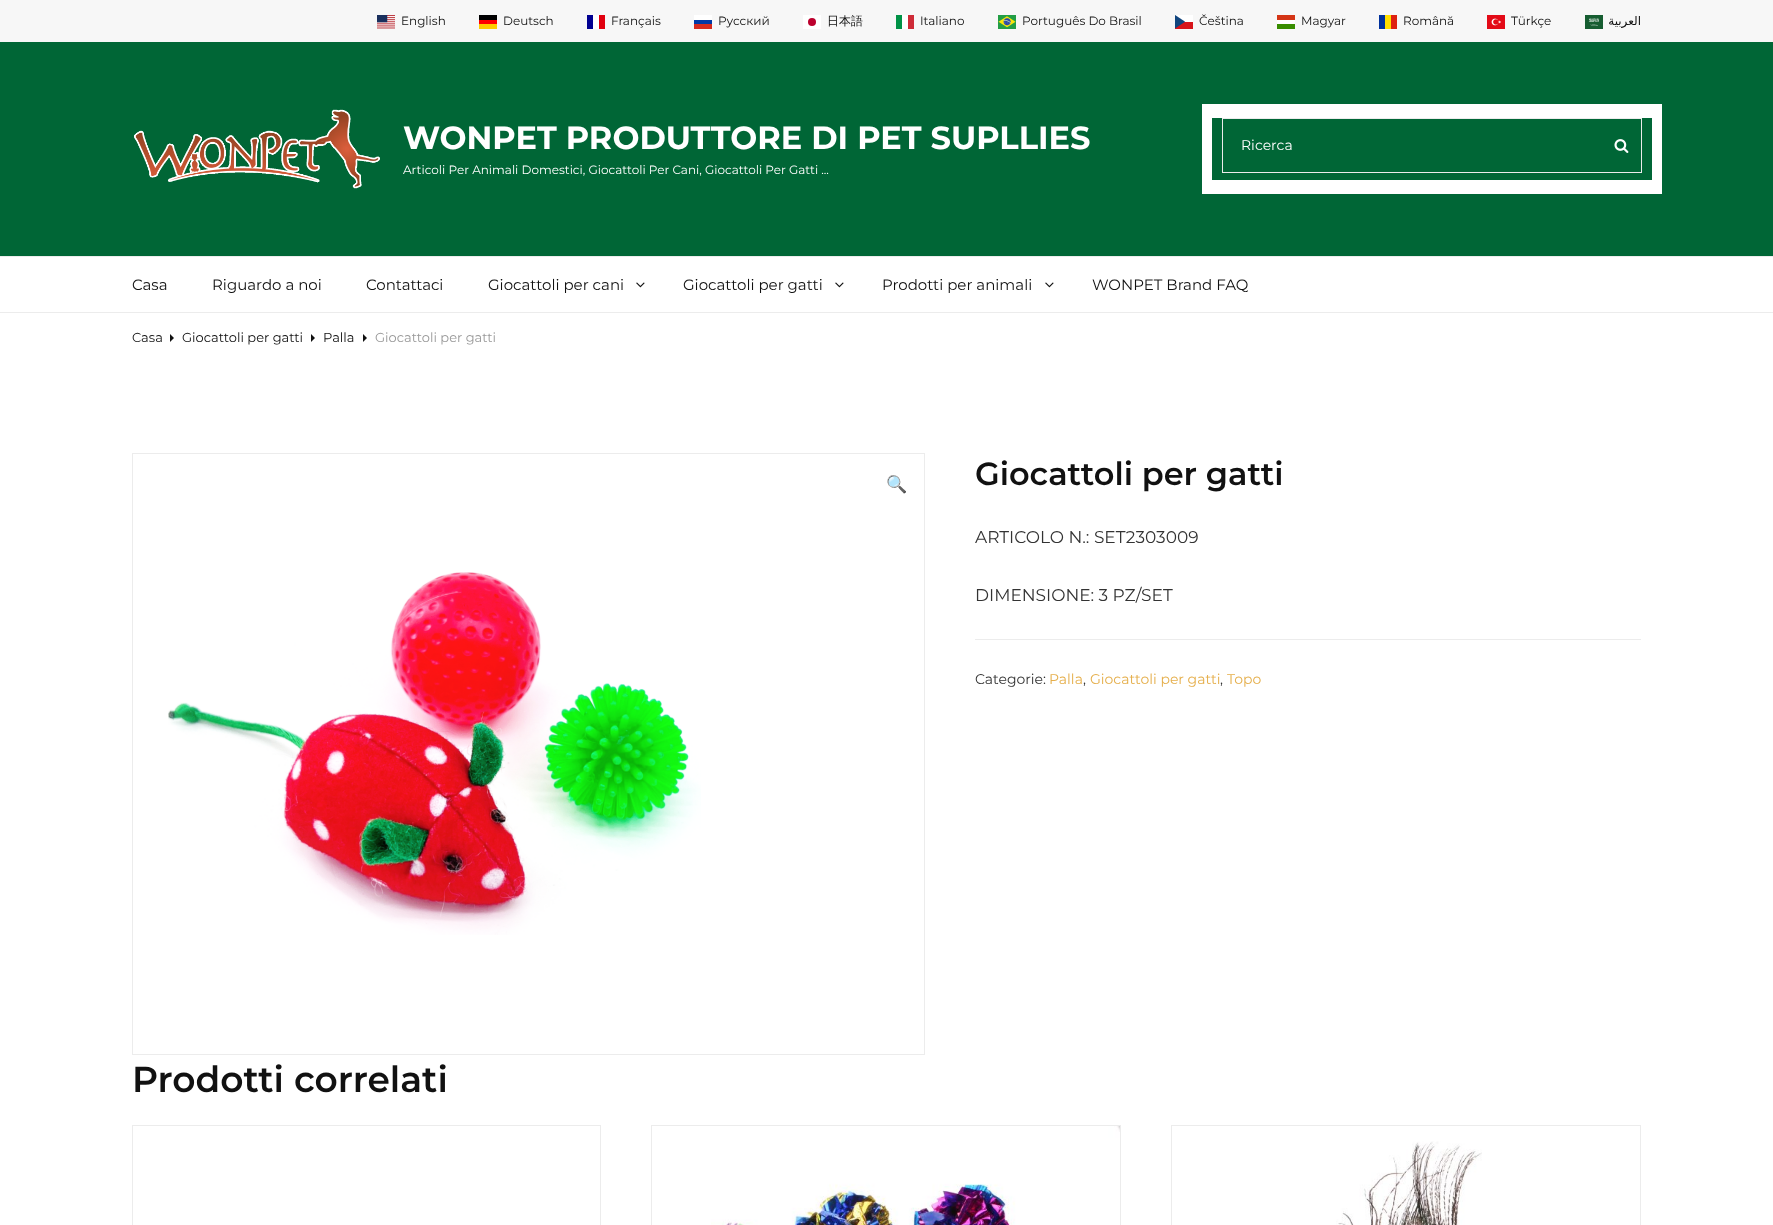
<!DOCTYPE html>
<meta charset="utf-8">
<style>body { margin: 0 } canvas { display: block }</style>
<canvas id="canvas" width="1773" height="1225"></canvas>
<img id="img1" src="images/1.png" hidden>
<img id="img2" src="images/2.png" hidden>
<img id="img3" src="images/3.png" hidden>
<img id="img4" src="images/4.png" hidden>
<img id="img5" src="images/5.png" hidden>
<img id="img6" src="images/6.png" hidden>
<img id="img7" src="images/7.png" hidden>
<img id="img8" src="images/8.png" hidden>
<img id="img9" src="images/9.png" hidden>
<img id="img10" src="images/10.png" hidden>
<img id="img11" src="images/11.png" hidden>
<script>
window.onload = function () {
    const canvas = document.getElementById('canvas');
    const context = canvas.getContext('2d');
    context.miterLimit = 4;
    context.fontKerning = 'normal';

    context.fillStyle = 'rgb(255, 255, 255)';
    context.fillRect(0, 0, 1773, 1225);
    context.fillStyle = 'rgb(247, 247, 247)';
    context.fillRect(0, 0, 1773, 42);
    context.drawImage(document.getElementById('img1'), 377, 15, 18, 14);
    context.fillStyle = 'rgb(255, 204, 0)';
    context.fillRect(479, 24, 18, 5);
    context.fillStyle = 'rgb(0, 0, 1)';
    context.fillRect(479, 15, 18, 5);
    context.fillStyle = 'rgb(255, 0, 0)';
    context.fillRect(479, 20, 18, 4);
    context.fillStyle = 'rgb(255, 255, 255)';
    context.fillRect(593, 15, 6, 14);
    context.fillStyle = 'rgb(0, 0, 145)';
    context.fillRect(587, 15, 6, 14);
    context.fillStyle = 'rgb(225, 0, 15)';
    context.fillRect(599, 15, 6, 14);
    context.fillStyle = 'rgb(255, 255, 255)';
    context.fillRect(694, 15, 18, 5);
    context.fillStyle = 'rgb(0, 57, 166)';
    context.fillRect(694, 20, 18, 4);
    context.fillStyle = 'rgb(213, 43, 30)';
    context.fillRect(694, 24, 18, 5);
    context.fillStyle = 'rgb(255, 255, 255)';
    context.fillRect(803, 15, 18, 14);
    context.fillStyle = 'rgb(188, 0, 45)';
    context.beginPath();
    context.arc(812, 22, 4, 0, 2 * Math.PI);
    context.fill();
    context.fillStyle = 'rgb(255, 255, 255)';
    context.fillRect(902, 15, 6, 14);
    context.fillStyle = 'rgb(0, 146, 70)';
    context.fillRect(896, 15, 6, 14);
    context.fillStyle = 'rgb(206, 43, 55)';
    context.fillRect(908, 15, 6, 14);
    context.drawImage(document.getElementById('img2'), 998, 15, 18, 14);
    context.drawImage(document.getElementById('img3'), 1175, 15, 18, 14);
    context.fillStyle = 'rgb(255, 255, 255)';
    context.fillRect(1277, 20, 18, 4);
    context.fillStyle = 'rgb(56, 141, 0)';
    context.fillRect(1277, 24, 18, 5);
    context.fillStyle = 'rgb(212, 53, 22)';
    context.fillRect(1277, 15, 18, 5);
    context.fillStyle = 'rgb(0, 49, 156)';
    context.fillRect(1379, 15, 6, 14);
    context.fillStyle = 'rgb(255, 222, 0)';
    context.fillRect(1385, 15, 6, 14);
    context.fillStyle = 'rgb(222, 33, 16)';
    context.fillRect(1391, 15, 6, 14);
    context.drawImage(document.getElementById('img4'), 1487, 15, 18, 14);
    context.drawImage(document.getElementById('img5'), 1585, 15, 18, 14);
    context.fillStyle = 'rgb(0, 102, 54)';
    context.fillRect(0, 42, 1773, 214);
    context.drawImage(document.getElementById('img6'), 134, 109, 246, 80);
    context.fillStyle = 'rgb(255, 255, 255)';
    context.fillRect(1202, 104, 460, 90);
    context.fillStyle = 'rgb(0, 102, 54)';
    context.fillRect(1212, 118, 440, 62);
    context.strokeStyle = 'rgb(236, 236, 236)';
    context.strokeRect(1222.5, 118.5, 419, 54);
    context.drawImage(document.getElementById('img7'), 1614, 139, 15, 14);
    context.fillStyle = 'rgb(236, 236, 236)';
    context.fillRect(0, 256, 1773, 1);
    context.fillRect(0, 312, 1773, 1);
    context.drawImage(document.getElementById('img8'), 636, 282, 9, 6);
    context.drawImage(document.getElementById('img8'), 835, 282, 9, 6);
    context.drawImage(document.getElementById('img8'), 1045, 282, 9, 6);
    context.fillStyle = 'rgb(17, 17, 17)';
    context.beginPath();
    context.moveTo(170, 342);
    context.lineTo(170, 334);
    context.lineTo(174, 338);
    context.closePath();
    context.fill();
    context.beginPath();
    context.moveTo(311, 342);
    context.lineTo(311, 334);
    context.lineTo(315, 338);
    context.closePath();
    context.fill();
    context.beginPath();
    context.moveTo(363, 342);
    context.lineTo(363, 334);
    context.lineTo(367, 338);
    context.closePath();
    context.fill();
    context.strokeRect(132.5, 453.5, 792, 601);
    context.drawImage(document.getElementById('img9'), 168, 572, 533, 363);
    context.fillStyle = 'rgb(236, 236, 236)';
    context.fillRect(975, 639, 666, 1);
    context.strokeRect(132.5, 1125.5, 468, 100);
    context.strokeRect(651.5, 1125.5, 469, 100);
    context.drawImage(document.getElementById('img10'), 711, 1126, 409, 99);
    context.strokeRect(1171.5, 1125.5, 469, 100);
    context.drawImage(document.getElementById('img11'), 1336, 1141, 146, 84);
    context.font = '12px Montserrat';
    context.fillStyle = 'rgb(17, 17, 17)';
    context.fillText('English', 401, 25);
    context.fillText('Deutsch', 503, 25);
    context.fillText('Français', 611, 25);
    context.fillText('Русский', 718, 25);
    context.font = '500 12px WenQuanYi Zen Hei';
    context.fillText('日本語', 827, 25);
    context.font = '12px Montserrat';
    context.fillText('Italiano', 920, 25);
    context.fillText('Português Do Brasil', 1022, 25);
    context.fillText('Čeština', 1199, 25);
    context.fillText('Magyar', 1301, 25);
    context.fillText('Română', 1403, 25);
    context.fillText('Türkçe', 1511, 25);
    context.direction = 'rtl';
    context.font = '12px DejaVu Sans';
    context.fillText('العربية', 1641, 25);
    context.direction = 'ltr';
    context.font = 'bold 32px Montserrat';
    context.fillStyle = 'rgb(255, 255, 255)';
    context.fillText('WONPET PRODUTTORE DI PET SUPLLIES', 403, 149);
    context.font = '12px Montserrat';
    context.fillText('Articoli Per Animali Domestici, Giocattoli Per Cani, Giocattoli Per Gatti ...', 403, 174);
    context.font = '14px Montserrat';
    context.fillText('Ricerca', 1241, 150);
    context.font = '15px Montserrat';
    context.fillStyle = 'rgb(17, 17, 17)';
    context.fillText('Casa', 132, 290);
    context.fillText('Riguardo a noi', 212, 290);
    context.fillText('Contattaci', 366, 290);
    context.fillText('Giocattoli per cani', 488, 290);
    context.fillText('Giocattoli per gatti', 683, 290);
    context.fillText('Prodotti per animali', 882, 290);
    context.fillText('WONPET Brand FAQ', 1092, 290);
    context.font = '13px Montserrat';
    context.fillText('Casa', 132, 342);
    context.fillText('Giocattoli per gatti', 182, 342);
    context.fillText('Palla', 323, 342);
    context.fillStyle = 'rgb(153, 153, 153)';
    context.fillText('Giocattoli per gatti', 375, 342);
    context.font = '17px Noto Color Emoji';
    context.fillStyle = 'rgb(17, 17, 17)';
    context.fillText('🔍', 886, 490);
    context.font = '600 32px Montserrat';
    context.fillText('Giocattoli per gatti', 975, 485);
    context.font = '17px Montserrat';
    context.fillStyle = 'rgb(51, 51, 51)';
    context.fillText('ARTICOLO N.: SET2303009', 975, 543);
    context.fillText('DIMENSIONE: 3 PZ/SET', 975, 601);
    context.font = '14px Montserrat';
    context.fillText('Categorie:', 975, 684);
    context.fillStyle = 'rgb(229, 174, 74)';
    context.fillText('Palla', 1049, 684);
    context.fillStyle = 'rgb(51, 51, 51)';
    context.fillText(',', 1083, 684);
    context.fillStyle = 'rgb(229, 174, 74)';
    context.fillText('Giocattoli per gatti', 1090, 684);
    context.fillStyle = 'rgb(51, 51, 51)';
    context.fillText(',', 1220, 684);
    context.fillStyle = 'rgb(229, 174, 74)';
    context.fillText('Topo', 1227, 684);
    context.font = '600 36px Montserrat';
    context.fillStyle = 'rgb(17, 17, 17)';
    context.fillText('Prodotti correlati', 132, 1092);
};
</script>
